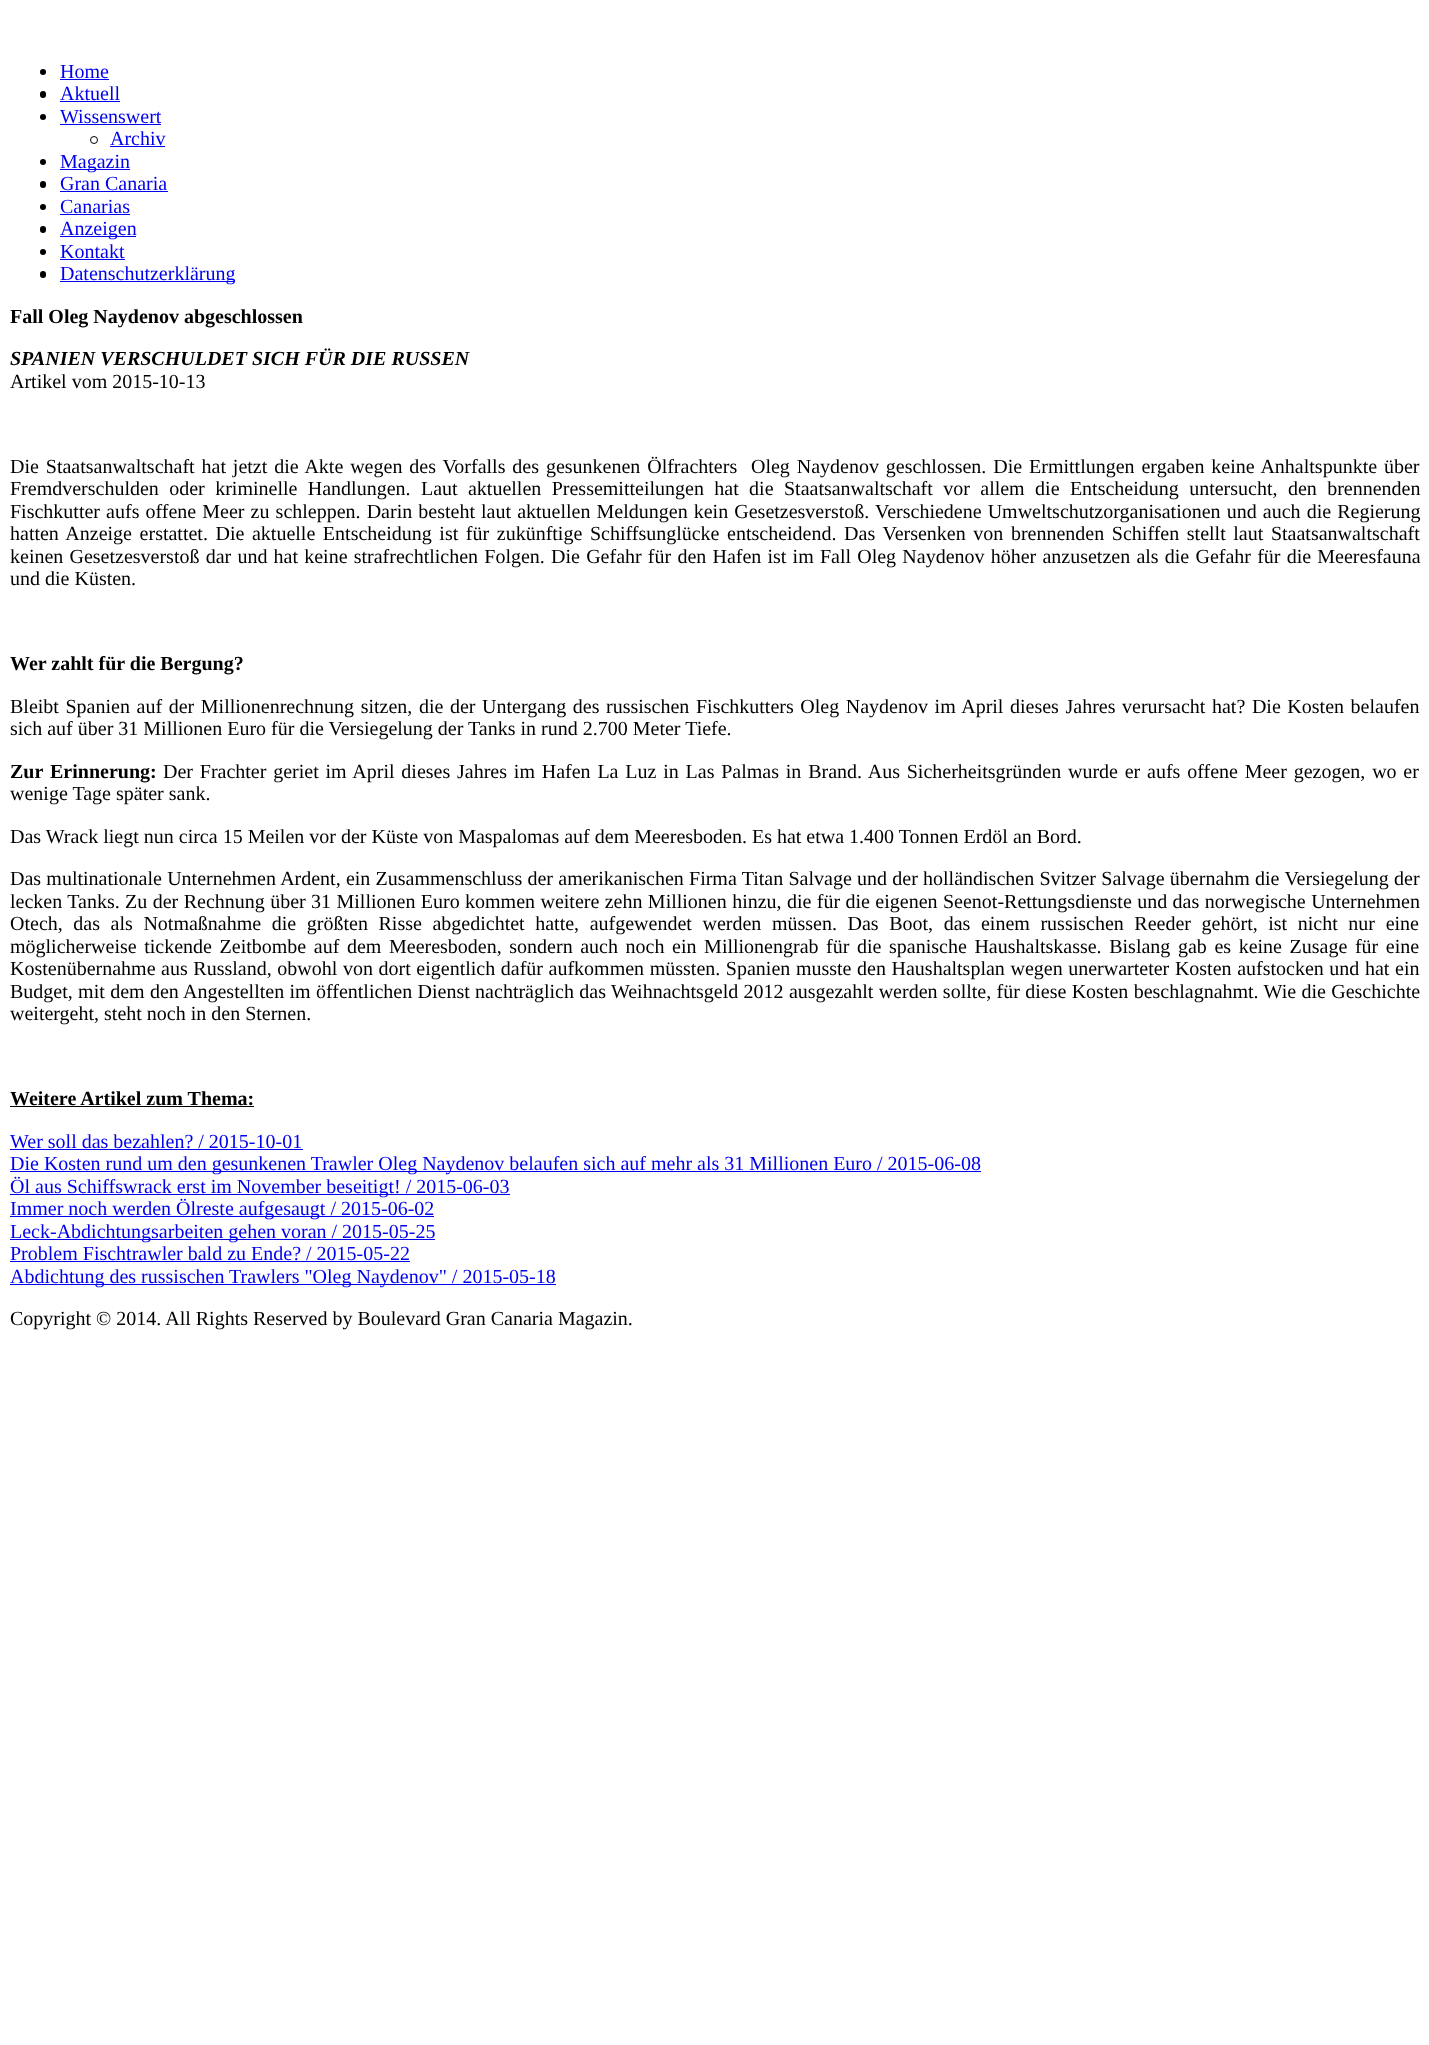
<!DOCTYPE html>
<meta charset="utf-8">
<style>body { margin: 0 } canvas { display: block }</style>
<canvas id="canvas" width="1429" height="2045"></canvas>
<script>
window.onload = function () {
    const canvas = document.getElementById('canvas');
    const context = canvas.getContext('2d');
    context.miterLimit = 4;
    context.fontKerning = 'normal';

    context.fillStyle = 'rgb(255, 255, 255)';
    context.fillRect(0, 0, 1429, 2045);
    context.fillStyle = 'rgb(0, 0, 0)';
    context.beginPath();
    context.arc(43, 72, 3, 0, 2 * Math.PI);
    context.fill();
    context.fillStyle = 'rgb(0, 0, 238)';
    context.fillRect(60, 79, 49, 1);
    context.fillStyle = 'rgb(0, 0, 0)';
    context.beginPath();
    context.roundRect(40, 91, 6, 7, 3);
    context.fill();
    context.fillStyle = 'rgb(0, 0, 238)';
    context.fillRect(60, 101, 60, 1);
    context.fillStyle = 'rgb(0, 0, 0)';
    context.beginPath();
    context.arc(43, 117, 3, 0, 2 * Math.PI);
    context.fill();
    context.fillStyle = 'rgb(0, 0, 238)';
    context.fillRect(60, 124, 101, 1);
    context.beginPath();
    context.arc(94, 140, 3.5, 0, 2 * Math.PI);
    context.strokeStyle = 'rgb(0, 0, 0)';
    context.stroke();
    context.fillRect(110, 146, 55, 1);
    context.fillStyle = 'rgb(0, 0, 0)';
    context.beginPath();
    context.arc(43, 162, 3, 0, 2 * Math.PI);
    context.fill();
    context.fillStyle = 'rgb(0, 0, 238)';
    context.fillRect(60, 169, 70, 1);
    context.fillStyle = 'rgb(0, 0, 0)';
    context.beginPath();
    context.roundRect(40, 181, 6, 7, 3);
    context.fill();
    context.fillStyle = 'rgb(0, 0, 238)';
    context.fillRect(60, 191, 108, 1);
    context.fillStyle = 'rgb(0, 0, 0)';
    context.beginPath();
    context.arc(43, 207, 3, 0, 2 * Math.PI);
    context.fill();
    context.fillStyle = 'rgb(0, 0, 238)';
    context.fillRect(60, 214, 70, 1);
    context.fillStyle = 'rgb(0, 0, 0)';
    context.beginPath();
    context.roundRect(40, 226, 6, 7, 3);
    context.fill();
    context.fillStyle = 'rgb(0, 0, 238)';
    context.fillRect(60, 236, 76, 1);
    context.fillStyle = 'rgb(0, 0, 0)';
    context.beginPath();
    context.arc(43, 252, 3, 0, 2 * Math.PI);
    context.fill();
    context.fillStyle = 'rgb(0, 0, 238)';
    context.fillRect(60, 259, 65, 1);
    context.fillStyle = 'rgb(0, 0, 0)';
    context.beginPath();
    context.roundRect(40, 271, 6, 7, 3);
    context.fill();
    context.fillStyle = 'rgb(0, 0, 238)';
    context.fillRect(60, 281, 175, 1);
    context.fillStyle = 'rgb(0, 0, 0)';
    context.fillRect(10, 1106, 244, 1);
    context.fillStyle = 'rgb(0, 0, 238)';
    context.fillRect(10, 1149, 293, 1);
    context.fillRect(10, 1171, 971, 1);
    context.fillRect(10, 1194, 500, 1);
    context.fillRect(10, 1216, 424, 1);
    context.fillRect(10, 1239, 425, 1);
    context.fillRect(10, 1261, 400, 1);
    context.fillRect(10, 1284, 546, 1);
    context.font = '20px Liberation Serif';
    context.fillText('Home', 60, 78);
    context.fillText('Aktuell', 60, 100);
    context.fillText('Wissenswert', 60, 123);
    context.fillText('Archiv', 110, 145);
    context.fillText('Magazin', 60, 168);
    context.fillText('Gran Canaria', 60, 190);
    context.fillText('Canarias', 60, 213);
    context.fillText('Anzeigen', 60, 235);
    context.fillText('Kontakt', 60, 258);
    context.fillText('Datenschutzerklärung', 60, 280);
    context.font = 'bold 20px Liberation Serif';
    context.fillStyle = 'rgb(0, 0, 0)';
    context.fillText('Fall Oleg Naydenov abgeschlossen', 10, 323);
    context.font = 'italic bold 20px Liberation Serif';
    context.fillText('SPANIEN VERSCHULDET SICH FÜR DIE RUSSEN', 10, 365);
    context.font = '20px Liberation Serif';
    context.fillText('Artikel vom 2015-10-13', 10, 388);
    context.wordSpacing = '1.9px';
    context.fillText('Die Staatsanwaltschaft hat jetzt die Akte wegen des Vorfalls des gesunkenen Ölfrachters  Oleg Naydenov geschlossen. Die Ermittlungen ergaben keine Anhaltspunkte über', 10, 473);
    context.wordSpacing = '5.4px';
    context.fillText('Fremdverschulden oder kriminelle Handlungen. Laut aktuellen Pressemitteilungen hat die Staatsanwaltschaft vor allem die Entscheidung untersucht, den brennenden', 10, 495);
    context.wordSpacing = '1.1px';
    context.fillText('Fischkutter aufs offene Meer zu schleppen. Darin besteht laut aktuellen Meldungen kein Gesetzesverstoß. Verschiedene Umweltschutzorganisationen und auch die Regierung', 10, 518);
    context.wordSpacing = '2.6px';
    context.fillText('hatten Anzeige erstattet. Die aktuelle Entscheidung ist für zukünftige Schiffsunglücke entscheidend. Das Versenken von brennenden Schiffen stellt laut Staatsanwaltschaft', 10, 540);
    context.wordSpacing = '1.2px';
    context.fillText('keinen Gesetzesverstoß dar und hat keine strafrechtlichen Folgen. Die Gefahr für den Hafen ist im Fall Oleg Naydenov höher anzusetzen als die Gefahr für die Meeresfauna', 10, 563);
    context.wordSpacing = '0px';
    context.fillText('und die Küsten.', 10, 585);
    context.font = 'bold 20px Liberation Serif';
    context.fillText('Wer zahlt für die Bergung?', 10, 670);
    context.wordSpacing = '1.6px';
    context.font = '20px Liberation Serif';
    context.fillText('Bleibt Spanien auf der Millionenrechnung sitzen, die der Untergang des russischen Fischkutters Oleg Naydenov im April dieses Jahres verursacht hat? Die Kosten belaufen', 10, 713);
    context.wordSpacing = '0px';
    context.fillText('sich auf über 31 Millionen Euro für die Versiegelung der Tanks in rund 2.700 Meter Tiefe.', 10, 735);
    context.wordSpacing = '2px';
    context.font = 'bold 20px Liberation Serif';
    context.fillText('Zur Erinnerung:', 10, 778);
    context.wordSpacing = '1.8px';
    context.font = '20px Liberation Serif';
    context.fillText('Der Frachter geriet im April dieses Jahres im Hafen La Luz in Las Palmas in Brand. Aus Sicherheitsgründen wurde er aufs offene Meer gezogen, wo er', 163, 778);
    context.wordSpacing = '0px';
    context.fillText('wenige Tage später sank.', 10, 800);
    context.fillText('Das Wrack liegt nun circa 15 Meilen vor der Küste von Maspalomas auf dem Meeresboden. Es hat etwa 1.400 Tonnen Erdöl an Bord.', 10, 843);
    context.wordSpacing = '0.25px';
    context.fillText('Das multinationale Unternehmen Ardent, ein Zusammenschluss der amerikanischen Firma Titan Salvage und der holländischen Svitzer Salvage übernahm die Versiegelung der', 10, 885);
    context.wordSpacing = '0.4px';
    context.fillText('lecken Tanks. Zu der Rechnung über 31 Millionen Euro kommen weitere zehn Millionen hinzu, die für die eigenen Seenot-Rettungsdienste und das norwegische Unternehmen', 10, 908);
    context.wordSpacing = '5.6px';
    context.fillText('Otech, das als Notmaßnahme die größten Risse abgedichtet hatte, aufgewendet werden müssen. Das Boot, das einem russischen Reeder gehört, ist nicht nur eine', 10, 930);
    context.wordSpacing = '2.6px';
    context.fillText('möglicherweise tickende Zeitbombe auf dem Meeresboden, sondern auch noch ein Millionengrab für die spanische Haushaltskasse. Bislang gab es keine Zusage für eine', 10, 953);
    context.wordSpacing = '0.6px';
    context.fillText('Kostenübernahme aus Russland, obwohl von dort eigentlich dafür aufkommen müssten. Spanien musste den Haushaltsplan wegen unerwarteter Kosten aufstocken und hat ein', 10, 975);
    context.wordSpacing = '0.35px';
    context.fillText('Budget, mit dem den Angestellten im öffentlichen Dienst nachträglich das Weihnachtsgeld 2012 ausgezahlt werden sollte, für diese Kosten beschlagnahmt. Wie die Geschichte', 10, 998);
    context.wordSpacing = '0px';
    context.fillText('weitergeht, steht noch in den Sternen.', 10, 1020);
    context.font = 'bold 20px Liberation Serif';
    context.fillText('Weitere Artikel zum Thema:', 10, 1105);
    context.font = '20px Liberation Serif';
    context.fillStyle = 'rgb(0, 0, 238)';
    context.fillText('Wer soll das bezahlen? / 2015-10-01', 10, 1148);
    context.fillText('Die Kosten rund um den gesunkenen Trawler Oleg Naydenov belaufen sich auf mehr als 31 Millionen Euro / 2015-06-08', 10, 1170);
    context.fillText('Öl aus Schiffswrack erst im November beseitigt! / 2015-06-03', 10, 1193);
    context.fillText('Immer noch werden Ölreste aufgesaugt / 2015-06-02', 10, 1215);
    context.fillText('Leck-Abdichtungsarbeiten gehen voran / 2015-05-25', 10, 1238);
    context.fillText('Problem Fischtrawler bald zu Ende? / 2015-05-22', 10, 1260);
    context.fillText('Abdichtung des russischen Trawlers "Oleg Naydenov" / 2015-05-18', 10, 1283);
    context.fillStyle = 'rgb(0, 0, 0)';
    context.fillText('Copyright © 2014. All Rights Reserved by Boulevard Gran Canaria Magazin.', 10, 1325);
};
</script>
